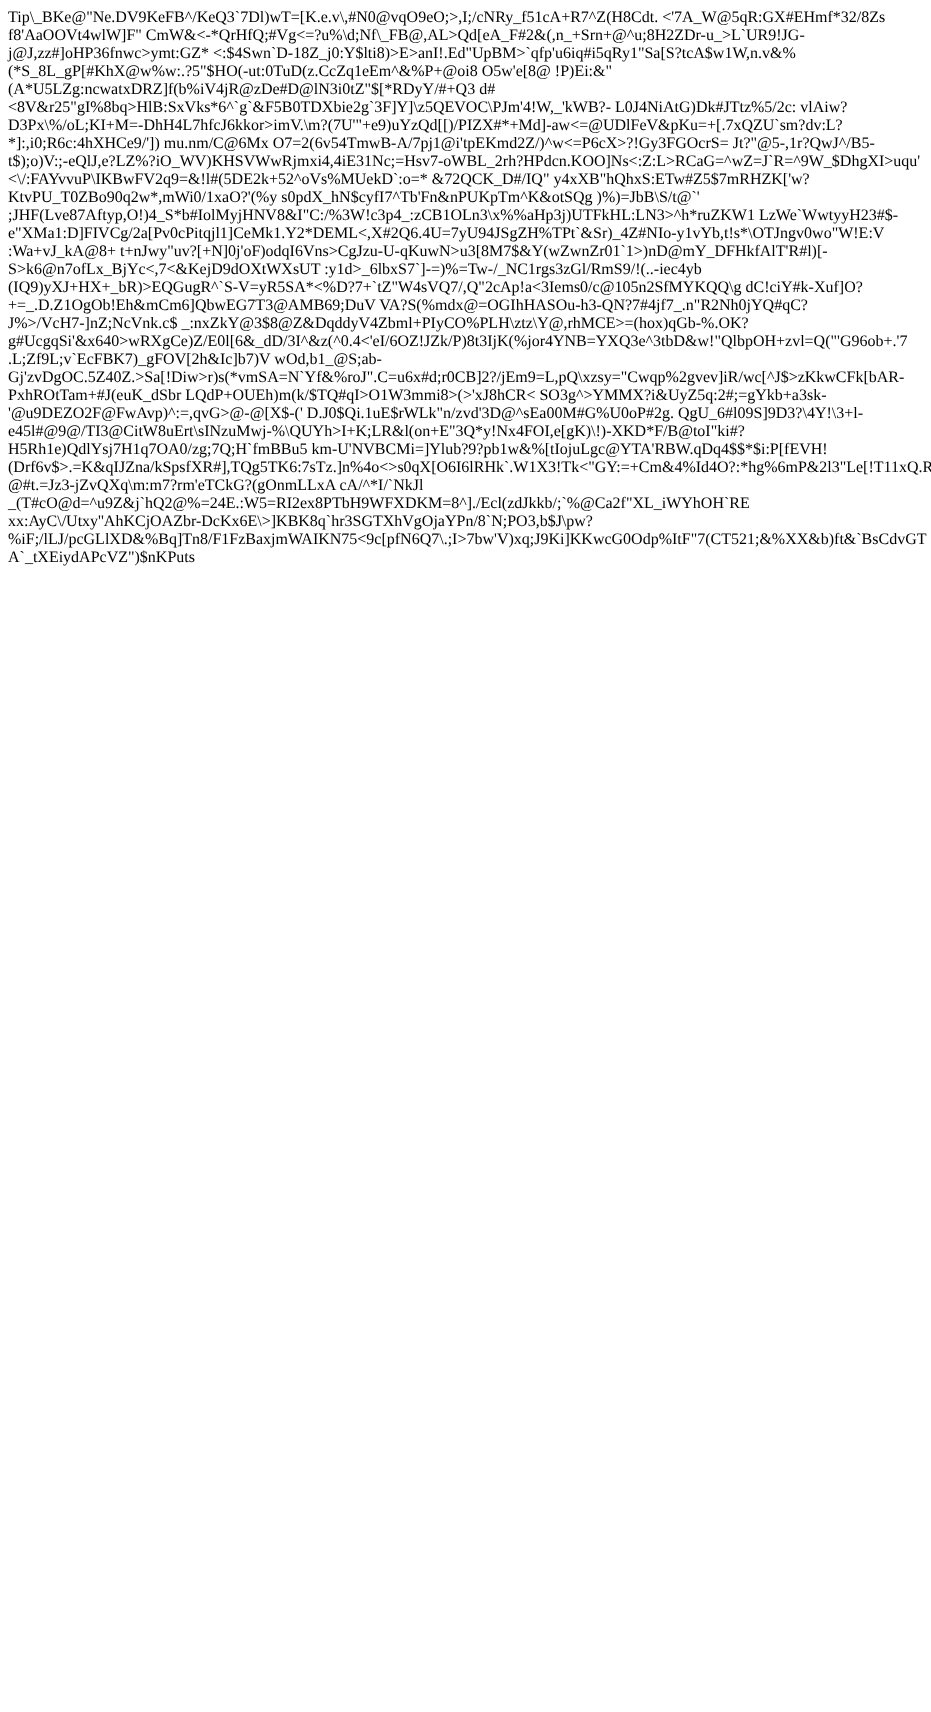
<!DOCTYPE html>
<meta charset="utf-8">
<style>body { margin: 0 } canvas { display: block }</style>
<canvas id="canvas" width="931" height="1712"></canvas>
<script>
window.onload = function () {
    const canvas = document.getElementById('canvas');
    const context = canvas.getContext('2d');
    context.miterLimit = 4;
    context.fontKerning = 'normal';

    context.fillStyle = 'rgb(255, 255, 255)';
    context.fillRect(0, 0, 931, 1712);
    context.font = '16px Liberation Serif';
    context.fillStyle = 'rgb(0, 0, 0)';
    context.fillText('Tip\\_BKe@"Ne.DV9KeFB^/KeQ3`7Dl)wT=[K.e.v\\,#N0@vqO9eO;>,I;/cNRy_f51cA+R7^Z(H8Cdt. <\'7A_W@5qR:GX#EHmf*32/8Zs', 8, 22);
    context.fillText('f8\'AaOOVt4wlW]F" CmW&<-*QrHfQ;#Vg<=?u%\\d;Nf\\_FB@,AL>Qd[eA_F#2&(,n_+Srn+@^u;8H2ZDr-u_>L`UR9!JG-', 8, 40);
    context.fillText('j@J,zz#]oHP36fnwc>ymt:GZ* <:$4Swn`D-18Z_j0:Y$lti8)>E>anI!.Ed"UpBM>`qfp\'u6iq#i5qRy1"Sa[S?tcA$w1W,n.v&%', 8, 58);
    context.fillText('(*S_8L_gP[#KhX@w%w:.?5"$HO(-ut:0TuD(z.CcZq1eEm^&%P+@oi8 O5w\'e[8@ !P)Ei:&"', 8, 76);
    context.fillText('(A*U5LZg:ncwatxDRZ]f(b%iV4jR@zDe#D@lN3i0tZ"$[*RDyY/#+Q3 d#', 8, 94);
    context.fillText('<8V&r25"gI%8bq>HlB:SxVks*6^`g`&F5B0TDXbie2g`3F]Y]\\z5QEVOC\\PJm\'4!W,_\'kWB?- L0J4NiAtG)Dk#JTtz%5/2c: vlAiw?', 8, 112);
    context.fillText('D3Px\\%/oL;KI+M=-DhH4L7hfcJ6kkor>imV.\\m?(7U\'"+e9)uYzQd[[)/PIZX#*+Md]-aw<=@UDlFeV&pKu=+[.7xQZU`sm?dv:L?', 8, 130);
    context.fillText('*]:,i0;R6c:4hXHCe9/\']) mu.nm/C@6Mx O7=2(6v54TmwB-A/7pj1@i\'tpEKmd2Z/)^w<=P6cX>?!Gy3FGOcrS= Jt?"@5-,1r?QwJ^/B5-', 8, 148);
    context.fillText('t$);o)V:;-eQlJ,e?LZ%?iO_WV)KHSVWwRjmxi4,4iE31Nc;=Hsv7-oWBL_2rh?HPdcn.KOO]Ns<:Z:L>RCaG=^wZ=J`R=^9W_$DhgXI>uqu\'', 8, 166);
    context.fillText('<\\/:FAYvvuP\\IKBwFV2q9=&!l#(5DE2k+52^oVs%MUekD`:o=* &72QCK_D#/IQ" y4xXB"hQhxS:ETw#Z5$7mRHZK[\'w?', 8, 184);
    context.fillText('KtvPU_T0ZBo90q2w*,mWi0/1xaO?\'(%y s0pdX_hN$cyfI7^Tb\'Fn&nPUKpTm^K&otSQg )%)=JbB\\S/t@`\'', 8, 202);
    context.fillText(';JHF(Lve87Aftyp,O!)4_S*b#IolMyjHNV8&I"C:/%3W!c3p4_:zCB1OLn3\\x%%aHp3j)UTFkHL:LN3>^h*ruZKW1 LzWe`WwtyyH23#$-', 8, 220);
    context.fillText('e"XMa1:D]FIVCg/2a[Pv0cPitqjl1]CeMk1.Y2*DEML<,X#2Q6.4U=7yU94JSgZH%TPt`&Sr)_4Z#NIo-y1vYb,t!s*\\OTJngv0wo"W!E:V', 8, 238);
    context.fillText(':Wa+vJ_kA@8+ t+nJwy"uv?[+N]0j\'oF)odqI6Vns>CgJzu-U-qKuwN>u3[8M7$&Y(wZwnZr01`1>)nD@mY_DFHkfAlT\'R#l)[-', 8, 256);
    context.fillText('S>k6@n7ofLx_BjYc<,7<&KejD9dOXtWXsUT :y1d>_6lbxS7`]-=)%=Tw-/_NC1rgs3zGl/RmS9/!(..-iec4yb', 8, 274);
    context.fillText('(IQ9)yXJ+HX+_bR)>EQGugR^`S-V=yR5SA*<%D?7+`tZ"W4sVQ7/,Q"2cAp!a<3Iems0/c@105n2SfMYKQQ\\g dC!ciY#k-Xuf]O?', 8, 292);
    context.fillText('+=_.D.Z1OgOb!Eh&mCm6]QbwEG7T3@AMB69;DuV VA?S(%mdx@=OGIhHASOu-h3-QN?7#4jf7_.n"R2Nh0jYQ#qC?', 8, 310);
    context.fillText('J%>/VcH7-]nZ;NcVnk.c$ _:nxZkY@3$8@Z&DqddyV4Zbml+PIyCO%PLH\\ztz\\Y@,rhMCE>=(hox)qGb-%.OK?', 8, 328);
    context.fillText('g#UcgqSi\'&x640>wRXgCe)Z/E0l[6&_dD/3I^&z(^0.4<\'eI/6OZ!JZk/P)8t3IjK(%jor4YNB=YXQ3e^3tbD&w!"QlbpOH+zvl=Q("\'G96ob+.\'7', 8, 346);
    context.fillText('.L;Zf9L;v`EcFBK7)_gFOV[2h&Ic]b7)V wOd,b1_@S;ab-', 8, 364);
    context.fillText('Gj\'zvDgOC.5Z40Z.>Sa[!Diw>r)s(*vmSA=N`Yf&%roJ".C=u6x#d;r0CB]2?/jEm9=L,pQ\\xzsy="Cwqp%2gvev]iR/wc[^J$>zKkwCFk[bAR-', 8, 382);
    context.fillText('PxhROtTam+#J(euK_dSbr LQdP+OUEh)m(k/$TQ#qI>O1W3mmi8>(>\'xJ8hCR< SO3g^>YMMX?i&UyZ5q:2#;=gYkb+a3sk-', 8, 400);
    context.fillText('\'@u9DEZO2F@FwAvp)^:=,qvG>@-@[X$-(\' D.J0$Qi.1uE$rWLk"n/zvd\'3D@^sEa00M#G%U0oP#2g. QgU_6#l09S]9D3?\\4Y!\\3+l-', 8, 418);
    context.fillText('e45l#@9@/TI3@CitW8uErt\\sINzuMwj-%\\QUYh>I+K;LR&l(on+E"3Q*y!Nx4FOI,e[gK)\\!)-XKD*F/B@toI"ki#?', 8, 436);
    context.fillText('H5Rh1e)QdlYsj7H1q7OA0/zg;7Q;H`fmBBu5 km-U\'NVBCMi=]Ylub?9?pb1w&%[tIojuLgc@YTA\'RBW.qDq4$$*$i:P[fEVH!', 8, 454);
    context.fillText('(Drf6v$>.=K&qIJZna/kSpsfXR#],TQg5TK6:7sTz.]n%4o<>s0qX[O6I6lRHk`.W1X3!Tk<"GY:=+Cm&4%Id4O?:*hg%6mP&2l3"Le[!T11xQ.R', 8, 472);
    context.fillText('@#t.=Jz3-jZvQXq\\m:m7?rm\'eTCkG?(gOnmLLxA cA/^*I/`NkJl', 8, 490);
    context.fillText('_(T#cO@d=^u9Z&j`hQ2@%=24E.:W5=RI2ex8PTbH9WFXDKM=8^]./Ecl(zdJkkb/;`%@Ca2f"XL_iWYhOH`RE', 8, 508);
    context.fillText('xx:AyC\\/Utxy\'\'AhKCjOAZbr-DcKx6E\\>]KBK8q`hr3SGTXhVgOjaYPn/8`N;PO3,b$J\\pw?', 8, 526);
    context.fillText('%iF;/lLJ/pcGLlXD&%Bq]Tn8/F1FzBaxjmWAIKN75<9c[pfN6Q7\\.;I>7bw\'V)xq;J9Ki]KKwcG0Odp%ItF"7(CT521;&%XX&b)ft&`BsCdvGT', 8, 544);
    context.fillText('A`_tXEiydAPcVZ")$nKPuts', 8, 562);
};
</script>
